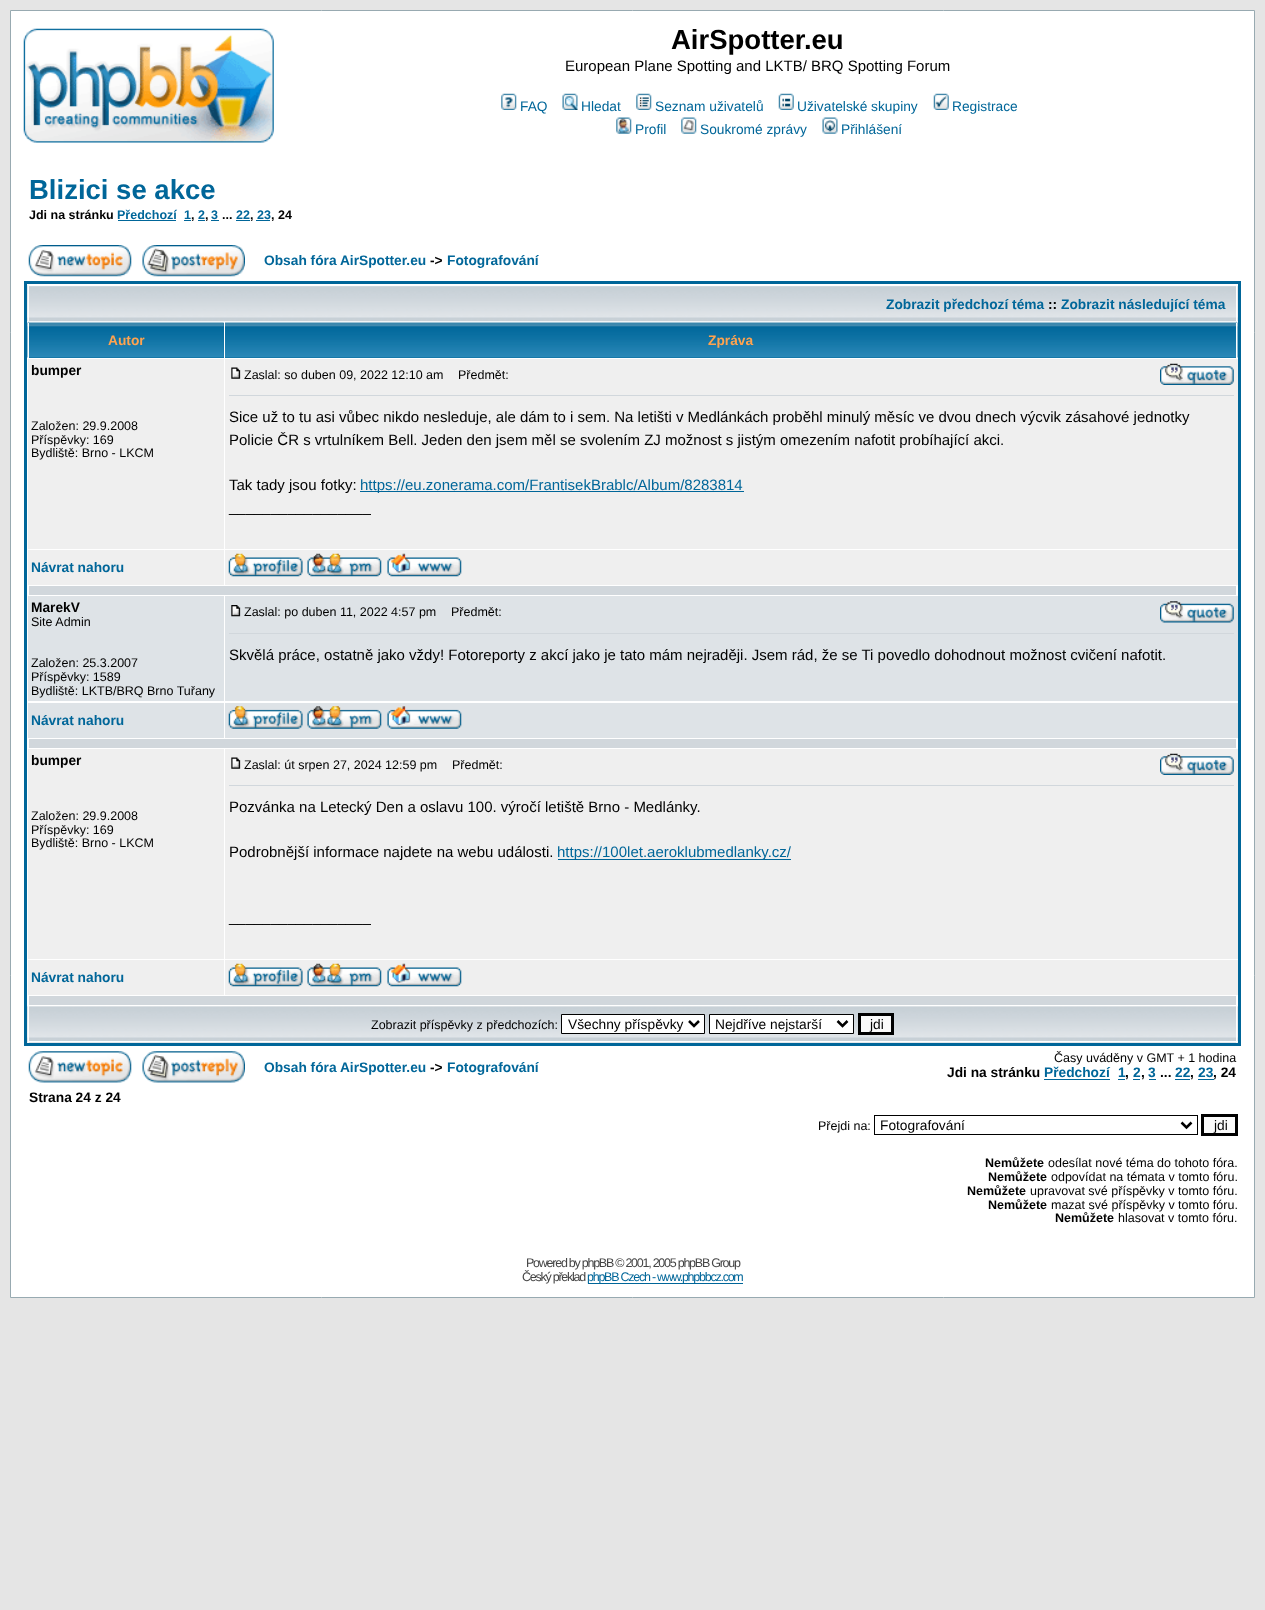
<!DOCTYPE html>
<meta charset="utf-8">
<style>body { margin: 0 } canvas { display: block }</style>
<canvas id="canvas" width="1265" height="1610"></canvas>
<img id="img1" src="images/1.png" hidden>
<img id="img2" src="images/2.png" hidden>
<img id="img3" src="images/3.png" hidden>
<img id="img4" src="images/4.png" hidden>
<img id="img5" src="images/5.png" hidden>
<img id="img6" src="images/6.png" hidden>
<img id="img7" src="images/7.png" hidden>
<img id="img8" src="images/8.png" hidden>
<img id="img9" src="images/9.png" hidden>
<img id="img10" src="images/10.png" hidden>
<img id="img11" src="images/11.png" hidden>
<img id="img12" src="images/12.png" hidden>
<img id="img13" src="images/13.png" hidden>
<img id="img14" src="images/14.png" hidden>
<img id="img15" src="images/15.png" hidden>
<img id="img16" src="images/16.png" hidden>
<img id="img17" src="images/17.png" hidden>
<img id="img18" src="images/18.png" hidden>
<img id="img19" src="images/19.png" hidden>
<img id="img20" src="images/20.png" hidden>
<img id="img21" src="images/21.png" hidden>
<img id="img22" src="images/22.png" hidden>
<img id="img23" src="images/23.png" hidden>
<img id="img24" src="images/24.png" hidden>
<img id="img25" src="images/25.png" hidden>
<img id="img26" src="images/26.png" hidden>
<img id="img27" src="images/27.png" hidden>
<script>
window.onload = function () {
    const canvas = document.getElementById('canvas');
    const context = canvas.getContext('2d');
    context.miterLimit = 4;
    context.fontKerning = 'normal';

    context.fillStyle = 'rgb(229, 229, 229)';
    context.fillRect(0, 0, 1265, 1610);
    context.fillStyle = 'rgb(255, 255, 255)';
    context.beginPath();
    context.rect(10.5, 10.5, 1244, 1287);
    context.fill();
    context.strokeStyle = 'rgb(152, 170, 177)';
    context.stroke();
    context.drawImage(document.getElementById('img1'), 23, 28, 251, 115);
    context.drawImage(document.getElementById('img2'), 501, 93, 16, 17);
    context.drawImage(document.getElementById('img3'), 562, 93, 16, 17);
    context.drawImage(document.getElementById('img4'), 636, 93, 16, 17);
    context.drawImage(document.getElementById('img5'), 778, 93, 16, 17);
    context.drawImage(document.getElementById('img6'), 933, 93, 16, 17);
    context.drawImage(document.getElementById('img7'), 616, 117, 16, 17);
    context.drawImage(document.getElementById('img8'), 681, 117, 16, 17);
    context.drawImage(document.getElementById('img9'), 822, 117, 16, 17);
    context.fillStyle = 'rgb(0, 102, 153)';
    context.fillRect(118, 220, 58, 1);
    context.fillRect(184, 220, 7, 1);
    context.fillRect(198, 220, 7, 1);
    context.fillRect(211, 220, 8, 1);
    context.fillRect(236, 220, 14, 1);
    context.fillRect(256, 220, 14, 1);
    context.drawImage(document.getElementById('img10'), 28, 245, 104, 32);
    context.drawImage(document.getElementById('img11'), 142, 245, 103, 32);
    context.strokeStyle = 'rgb(0, 102, 153)';
    context.lineWidth = 3;
    context.strokeRect(25.5, 282.5, 1214, 762);
    context.drawImage(document.getElementById('img12'), 27, 285, 1211, 37);
    context.fillStyle = 'rgb(255, 255, 255)';
    context.fillRect(28, 285, 1210, 1);
    context.fillRect(1236, 285, 1, 36);
    context.fillRect(28, 285, 1, 36);
    context.fillStyle = 'rgb(0, 102, 153)';
    context.fillRect(29, 323, 195, 35);
    context.drawImage(document.getElementById('img13'), 27, 322, 197, 36);
    context.fillStyle = 'rgb(255, 255, 255)';
    context.fillRect(28, 323, 1, 35);
    context.fillStyle = 'rgb(0, 102, 153)';
    context.fillRect(225, 357, 1011, 1);
    context.drawImage(document.getElementById('img14'), 225, 322, 1013, 36);
    context.fillStyle = 'rgb(255, 255, 255)';
    context.fillRect(1236, 323, 1, 35);
    context.fillStyle = 'rgb(239, 239, 239)';
    context.fillRect(28, 359, 196, 190);
    context.fillRect(225, 359, 1013, 190);
    context.drawImage(document.getElementById('img15'), 231, 367, 10, 12);
    context.drawImage(document.getElementById('img16'), 1160, 363, 74, 22);
    context.fillStyle = 'rgb(209, 215, 220)';
    context.fillRect(229, 395, 1005, 1);
    context.fillStyle = 'rgb(0, 102, 153)';
    context.fillRect(360, 491, 384, 1);
    context.fillStyle = 'rgb(239, 239, 239)';
    context.fillRect(28, 550, 196, 35);
    context.fillRect(225, 550, 1013, 35);
    context.drawImage(document.getElementById('img17'), 228, 553, 75, 24);
    context.drawImage(document.getElementById('img18'), 307, 553, 75, 24);
    context.drawImage(document.getElementById('img19'), 387, 553, 75, 24);
    context.fillStyle = 'rgb(209, 215, 220)';
    context.fillRect(29, 586, 1207, 9);
    context.fillStyle = 'rgb(222, 227, 231)';
    context.fillRect(28, 596, 196, 105);
    context.fillRect(225, 596, 1013, 105);
    context.drawImage(document.getElementById('img20'), 231, 605, 10, 12);
    context.drawImage(document.getElementById('img21'), 1160, 601, 74, 22);
    context.fillStyle = 'rgb(209, 215, 220)';
    context.fillRect(229, 633, 1005, 1);
    context.fillStyle = 'rgb(222, 227, 231)';
    context.fillRect(28, 703, 196, 35);
    context.fillRect(225, 703, 1013, 35);
    context.drawImage(document.getElementById('img22'), 228, 706, 75, 23);
    context.drawImage(document.getElementById('img23'), 307, 706, 75, 23);
    context.drawImage(document.getElementById('img24'), 387, 706, 75, 23);
    context.fillStyle = 'rgb(209, 215, 220)';
    context.fillRect(29, 739, 1207, 9);
    context.fillStyle = 'rgb(239, 239, 239)';
    context.fillRect(28, 749, 196, 210);
    context.fillRect(225, 749, 1013, 210);
    context.drawImage(document.getElementById('img15'), 231, 757, 10, 12);
    context.drawImage(document.getElementById('img16'), 1160, 753, 74, 22);
    context.fillStyle = 'rgb(209, 215, 220)';
    context.fillRect(229, 785, 1005, 1);
    context.fillStyle = 'rgb(0, 102, 153)';
    context.fillRect(558, 859, 233, 1);
    context.fillStyle = 'rgb(239, 239, 239)';
    context.fillRect(28, 960, 196, 35);
    context.fillRect(225, 960, 1013, 35);
    context.drawImage(document.getElementById('img17'), 228, 963, 75, 24);
    context.drawImage(document.getElementById('img18'), 307, 963, 75, 24);
    context.drawImage(document.getElementById('img19'), 387, 963, 75, 24);
    context.fillStyle = 'rgb(209, 215, 220)';
    context.fillRect(29, 996, 1207, 9);
    context.drawImage(document.getElementById('img25'), 27, 1006, 1211, 37);
    context.fillStyle = 'rgb(255, 255, 255)';
    context.fillRect(1236, 1006, 1, 37);
    context.fillRect(28, 1041, 1210, 1);
    context.fillRect(28, 1006, 1, 37);
    context.beginPath();
    context.rect(561.5, 1014.5, 143, 19);
    context.fill();
    context.strokeStyle = 'rgb(0, 0, 0)';
    context.lineWidth = 1;
    context.stroke();
    context.beginPath();
    context.moveTo(689, 1021);
    context.lineTo(694, 1026);
    context.lineTo(699, 1021);
    context.lineWidth = 2.5;
    context.stroke();
    context.beginPath();
    context.rect(709.5, 1014.5, 144, 19);
    context.fill();
    context.lineWidth = 1;
    context.stroke();
    context.beginPath();
    context.moveTo(837.5, 1021);
    context.lineTo(842.5, 1026);
    context.lineTo(847.5, 1021);
    context.lineWidth = 2.5;
    context.stroke();
    context.fillStyle = 'rgb(250, 250, 250)';
    context.beginPath();
    context.rect(859.5, 1014.5, 33, 19);
    context.fill();
    context.lineWidth = 3;
    context.stroke();
    context.drawImage(document.getElementById('img26'), 28, 1051, 104, 32);
    context.drawImage(document.getElementById('img27'), 142, 1051, 103, 32);
    context.fillStyle = 'rgb(0, 102, 153)';
    context.fillRect(1044, 1079, 66, 1);
    context.fillRect(1118, 1079, 7, 1);
    context.fillRect(1133, 1079, 7, 1);
    context.fillRect(1149, 1079, 7, 1);
    context.fillRect(1175, 1079, 15, 1);
    context.fillRect(1198, 1079, 16, 1);
    context.lineWidth = 1;
    context.strokeRect(874.5, 1115.5, 323, 19);
    context.beginPath();
    context.moveTo(1181.5, 1122.5);
    context.lineTo(1186.5, 1127.5);
    context.lineTo(1191.5, 1122.5);
    context.lineWidth = 2.5;
    context.stroke();
    context.fillStyle = 'rgb(250, 250, 250)';
    context.beginPath();
    context.rect(1202.5, 1115.5, 34, 19);
    context.fill();
    context.lineWidth = 3;
    context.stroke();
    context.fillStyle = 'rgb(0, 102, 153)';
    context.fillRect(588, 1283, 155, 1);
    context.font = 'bold 27.5px Liberation Sans';
    context.fillStyle = 'rgb(0, 0, 0)';
    context.fillText('AirSpotter.eu', 671, 49);
    context.font = '15px Liberation Sans';
    context.fillText('European Plane Spotting and LKTB/ BRQ Spotting Forum', 565, 71);
    context.font = '13.75px Liberation Sans';
    context.fillStyle = 'rgb(0, 102, 153)';
    context.fillText('FAQ', 520, 111);
    context.fillText('Hledat', 581, 111);
    context.fillText('Seznam uživatelů', 655, 111);
    context.fillText('Uživatelské skupiny', 797, 111);
    context.fillText('Registrace', 952, 111);
    context.fillText('Profil', 635, 134);
    context.fillText('Soukromé zprávy', 700, 134);
    context.fillText('Přihlášení', 841, 134);
    context.font = 'bold 27.5px Liberation Sans';
    context.fillText('Blizici se akce', 29, 199);
    context.font = 'bold 12.5px Liberation Sans';
    context.fillStyle = 'rgb(0, 0, 0)';
    context.fillText('Jdi na stránku', 29, 219);
    context.fillStyle = 'rgb(0, 102, 153)';
    context.fillText('Předchozí', 117, 219);
    context.fillText('1', 184, 219);
    context.fillStyle = 'rgb(0, 0, 0)';
    context.fillText(',', 191, 219);
    context.fillStyle = 'rgb(0, 102, 153)';
    context.fillText('2', 198, 219);
    context.fillStyle = 'rgb(0, 0, 0)';
    context.fillText(',', 205, 219);
    context.fillStyle = 'rgb(0, 102, 153)';
    context.fillText('3', 211, 219);
    context.fillStyle = 'rgb(0, 0, 0)';
    context.fillText('...', 222, 219);
    context.fillStyle = 'rgb(0, 102, 153)';
    context.fillText('22', 236, 219);
    context.fillStyle = 'rgb(0, 0, 0)';
    context.fillText(',', 250, 219);
    context.fillStyle = 'rgb(0, 102, 153)';
    context.fillText('23', 257, 219);
    context.fillStyle = 'rgb(0, 0, 0)';
    context.fillText(', 24', 271, 219);
    context.font = 'bold 13.75px Liberation Sans';
    context.fillStyle = 'rgb(0, 102, 153)';
    context.fillText('Obsah fóra AirSpotter.eu', 264, 265);
    context.fillStyle = 'rgb(0, 0, 0)';
    context.fillText('->', 430, 265);
    context.fillStyle = 'rgb(0, 102, 153)';
    context.fillText('Fotografování', 447, 265);
    context.fillText('Zobrazit předchozí téma', 886, 309);
    context.fillStyle = 'rgb(0, 0, 0)';
    context.fillText('::', 1048, 309);
    context.fillStyle = 'rgb(0, 102, 153)';
    context.fillText('Zobrazit následující téma', 1061, 309);
    context.fillStyle = 'rgb(255, 163, 79)';
    context.fillText('Autor', 108, 345);
    context.fillText('Zpráva', 708, 345);
    context.fillStyle = 'rgb(0, 0, 0)';
    context.fillText('bumper', 31, 375);
    context.font = '12.5px Liberation Sans';
    context.fillText('Založen: 29.9.2008', 31, 430);
    context.fillText('Příspěvky: 169', 31, 444);
    context.fillText('Bydliště: Brno - LKCM', 31, 457);
    context.fillText('Zaslal: so duben 09, 2022 12:10 am', 244, 379);
    context.fillText('Předmět:', 458, 379);
    context.font = '15px Liberation Sans';
    context.fillText('Sice už to tu asi vůbec nikdo nesleduje, ale dám to i sem. Na letišti v Medlánkách proběhl minulý měsíc ve dvou dnech výcvik zásahové jednotky', 229, 422);
    context.fillText('Policie ČR s vrtulníkem Bell. Jeden den jsem měl se svolením ZJ možnost s jistým omezením nafotit probíhající akci.', 229, 445);
    context.fillText('Tak tady jsou fotky:', 229, 490);
    context.fillStyle = 'rgb(0, 102, 153)';
    context.fillText('https://eu.zonerama.com/FrantisekBrablc/Album/8283814', 360, 490);
    context.fillStyle = 'rgb(0, 0, 0)';
    context.fillText('_________________', 229, 512);
    context.font = 'bold 13.75px Liberation Sans';
    context.fillStyle = 'rgb(0, 102, 153)';
    context.fillText('Návrat nahoru', 31, 572);
    context.fillStyle = 'rgb(0, 0, 0)';
    context.fillText('MarekV', 31, 612);
    context.font = '12.5px Liberation Sans';
    context.fillText('Site Admin', 31, 626);
    context.fillText('Založen: 25.3.2007', 31, 667);
    context.fillText('Příspěvky: 1589', 31, 681);
    context.fillText('Bydliště: LKTB/BRQ Brno Tuřany', 31, 695);
    context.fillText('Zaslal: po duben 11, 2022 4:57 pm', 244, 616);
    context.fillText('Předmět:', 451, 616);
    context.font = '15px Liberation Sans';
    context.fillText('Skvělá práce, ostatně jako vždy! Fotoreporty z akcí jako je tato mám nejraději. Jsem rád, že se Ti povedlo dohodnout možnost cvičení nafotit.', 229, 660);
    context.font = 'bold 13.75px Liberation Sans';
    context.fillStyle = 'rgb(0, 102, 153)';
    context.fillText('Návrat nahoru', 31, 725);
    context.fillStyle = 'rgb(0, 0, 0)';
    context.fillText('bumper', 31, 765);
    context.font = '12.5px Liberation Sans';
    context.fillText('Založen: 29.9.2008', 31, 820);
    context.fillText('Příspěvky: 169', 31, 834);
    context.fillText('Bydliště: Brno - LKCM', 31, 847);
    context.fillText('Zaslal: út srpen 27, 2024 12:59 pm', 244, 769);
    context.fillText('Předmět:', 452, 769);
    context.font = '15px Liberation Sans';
    context.fillText('Pozvánka na Letecký Den a oslavu 100. výročí letiště Brno - Medlánky.', 229, 812);
    context.fillText('Podrobnější informace najdete na webu události.', 229, 857);
    context.fillStyle = 'rgb(0, 102, 153)';
    context.fillText('https://100let.aeroklubmedlanky.cz/', 557, 857);
    context.fillStyle = 'rgb(0, 0, 0)';
    context.fillText('_________________', 229, 922);
    context.font = 'bold 13.75px Liberation Sans';
    context.fillStyle = 'rgb(0, 102, 153)';
    context.fillText('Návrat nahoru', 31, 982);
    context.font = '12.5px Liberation Sans';
    context.fillStyle = 'rgb(0, 0, 0)';
    context.fillText('Zobrazit příspěvky z předchozích:', 371, 1029);
    context.font = '13.75px Liberation Sans';
    context.fillText('Všechny příspěvky', 568, 1029);
    context.fillText('Nejdříve nejstarší', 715, 1029);
    context.fillText('jdi', 870, 1029);
    context.font = 'bold 13.75px Liberation Sans';
    context.fillStyle = 'rgb(0, 102, 153)';
    context.fillText('Obsah fóra AirSpotter.eu', 264, 1072);
    context.fillStyle = 'rgb(0, 0, 0)';
    context.fillText('->', 430, 1072);
    context.fillStyle = 'rgb(0, 102, 153)';
    context.fillText('Fotografování', 447, 1072);
    context.font = '12.5px Liberation Sans';
    context.fillStyle = 'rgb(0, 0, 0)';
    context.fillText('Časy uváděny v GMT + 1 hodina', 1054, 1062);
    context.font = 'bold 13.75px Liberation Sans';
    context.fillText('Jdi na stránku', 947, 1077);
    context.fillStyle = 'rgb(0, 102, 153)';
    context.fillText('Předchozí', 1044, 1077);
    context.fillText('1', 1118, 1077);
    context.fillStyle = 'rgb(0, 0, 0)';
    context.fillText(',', 1125, 1077);
    context.fillStyle = 'rgb(0, 102, 153)';
    context.fillText('2', 1133, 1077);
    context.fillStyle = 'rgb(0, 0, 0)';
    context.fillText(',', 1141, 1077);
    context.fillStyle = 'rgb(0, 102, 153)';
    context.fillText('3', 1148, 1077);
    context.fillStyle = 'rgb(0, 0, 0)';
    context.fillText('...', 1160, 1077);
    context.fillStyle = 'rgb(0, 102, 153)';
    context.fillText('22', 1175, 1077);
    context.fillStyle = 'rgb(0, 0, 0)';
    context.fillText(',', 1190, 1077);
    context.fillStyle = 'rgb(0, 102, 153)';
    context.fillText('23', 1198, 1077);
    context.fillStyle = 'rgb(0, 0, 0)';
    context.fillText(', 24', 1213, 1077);
    context.fillText('Strana 24 z 24', 29, 1102);
    context.font = '12.5px Liberation Sans';
    context.fillText('Přejdi na:', 818, 1130);
    context.font = '13.75px Liberation Sans';
    context.fillText('Fotografování', 880, 1130);
    context.fillText('jdi', 1214, 1130);
    context.font = 'bold 12.5px Liberation Sans';
    context.fillText('Nemůžete', 985, 1167);
    context.font = '12.5px Liberation Sans';
    context.fillText('odesílat nové téma do tohoto fóra.', 1048, 1167);
    context.font = 'bold 12.5px Liberation Sans';
    context.fillText('Nemůžete', 988, 1181);
    context.font = '12.5px Liberation Sans';
    context.fillText('odpovídat na témata v tomto fóru.', 1051, 1181);
    context.font = 'bold 12.5px Liberation Sans';
    context.fillText('Nemůžete', 967, 1195);
    context.font = '12.5px Liberation Sans';
    context.fillText('upravovat své příspěvky v tomto fóru.', 1030, 1195);
    context.font = 'bold 12.5px Liberation Sans';
    context.fillText('Nemůžete', 988, 1209);
    context.font = '12.5px Liberation Sans';
    context.fillText('mazat své příspěvky v tomto fóru.', 1051, 1209);
    context.font = 'bold 12.5px Liberation Sans';
    context.fillText('Nemůžete', 1055, 1222);
    context.font = '12.5px Liberation Sans';
    context.fillText('hlasovat v tomto fóru.', 1118, 1222);
    context.letterSpacing = '-1.25px';
    context.fillStyle = 'rgb(68, 68, 68)';
    context.fillText('Powered by phpBB © 2001, 2005 phpBB Group', 526, 1267);
    context.fillText('Český překlad', 522, 1281);
    context.fillStyle = 'rgb(0, 102, 153)';
    context.fillText('phpBB Czech - www.phpbbcz.com', 587, 1281);
};
</script>
